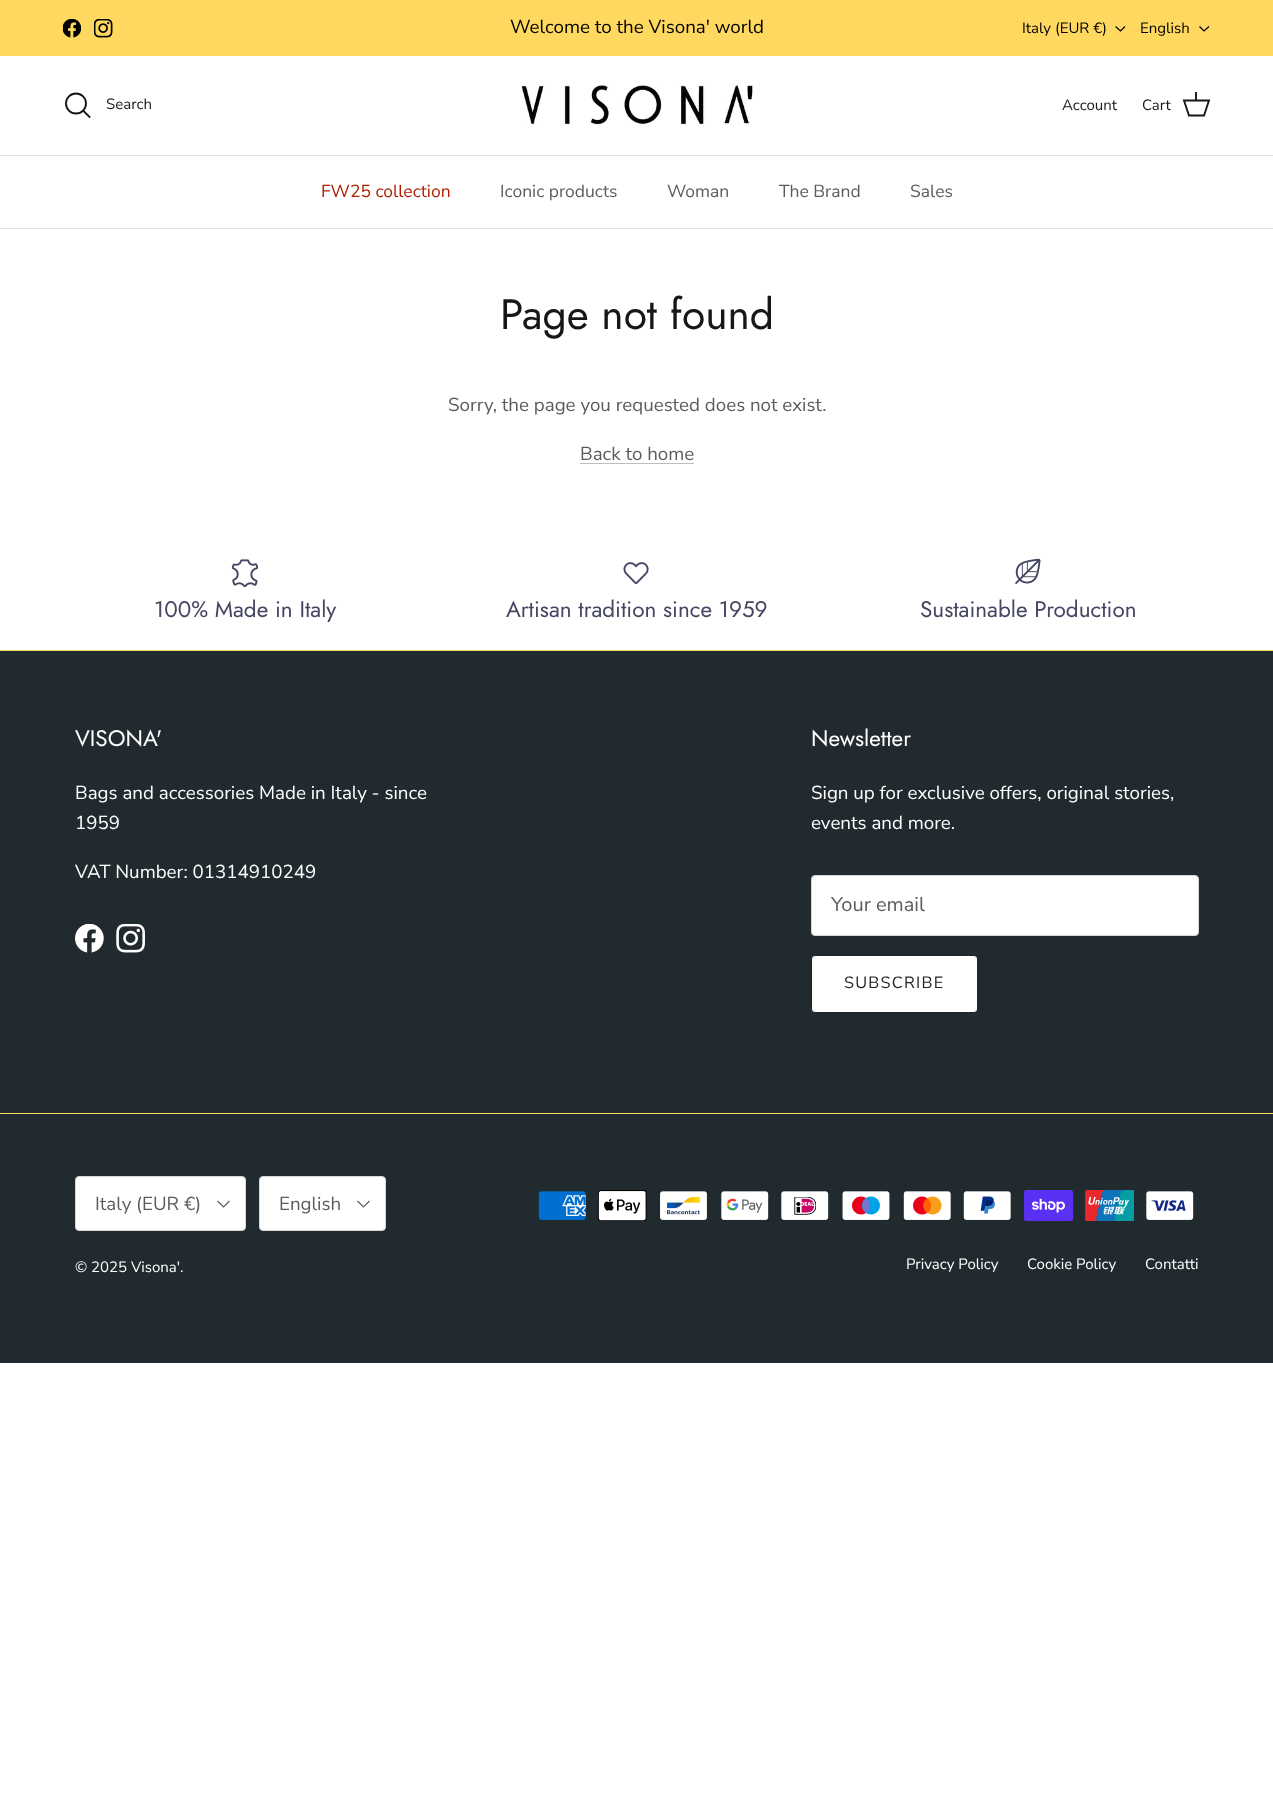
<!DOCTYPE html>
<meta charset="utf-8">
<style>body { margin: 0 } canvas { display: block }</style>
<canvas id="canvas" width="1273" height="1801"></canvas>
<img id="img1" src="images/1.png" hidden>
<img id="img2" src="images/2.png" hidden>
<img id="img3" src="images/3.png" hidden>
<img id="img4" src="images/4.png" hidden>
<img id="img5" src="images/5.png" hidden>
<img id="img6" src="images/6.png" hidden>
<img id="img7" src="images/7.png" hidden>
<img id="img8" src="images/8.png" hidden>
<img id="img9" src="images/9.png" hidden>
<img id="img10" src="images/10.png" hidden>
<img id="img11" src="images/11.png" hidden>
<img id="img12" src="images/12.png" hidden>
<img id="img13" src="images/13.png" hidden>
<img id="img14" src="images/14.png" hidden>
<img id="img15" src="images/15.png" hidden>
<img id="img16" src="images/16.png" hidden>
<img id="img17" src="images/17.png" hidden>
<img id="img18" src="images/18.png" hidden>
<img id="img19" src="images/19.png" hidden>
<script>
window.onload = function () {
    const canvas = document.getElementById('canvas');
    const context = canvas.getContext('2d');
    context.miterLimit = 4;
    context.fontKerning = 'normal';

    context.fillStyle = 'rgb(255, 255, 255)';
    context.fillRect(0, 0, 1273, 1801);
    context.fillStyle = 'rgb(255, 217, 95)';
    context.fillRect(0, 0, 1273, 56);
    context.drawImage(document.getElementById('img1'), 63, 19, 18, 19);
    context.drawImage(document.getElementById('img2'), 94, 19, 19, 19);
    context.beginPath();
    context.moveTo(1125, 26.5);
    context.lineTo(1120.5, 31);
    context.lineTo(1115.5, 26.5);
    context.strokeStyle = 'rgb(0, 0, 0)';
    context.lineWidth = 1.2;
    context.stroke();
    context.beginPath();
    context.moveTo(1209, 26.5);
    context.lineTo(1204, 31);
    context.lineTo(1199.5, 26.5);
    context.stroke();
    context.fillStyle = 'rgb(223, 227, 232)';
    context.fillRect(0, 155, 1273, 1);
    context.beginPath();
    context.arc(76, 103.5, 10, 0, 2 * Math.PI);
    context.strokeStyle = 'rgb(23, 23, 23)';
    context.lineWidth = 1.9;
    context.stroke();
    context.beginPath();
    context.moveTo(83.5, 111);
    context.lineTo(89.5, 117);
    context.lineCap = 'square';
    context.stroke();
    context.drawImage(document.getElementById('img3'), 521, 84, 232, 41);
    context.beginPath();
    context.moveTo(1184, 100.5);
    context.lineTo(1209, 100.5);
    context.lineTo(1204, 115.5);
    context.lineTo(1189, 115.5);
    context.closePath();
    context.lineCap = 'butt';
    context.stroke();
    context.fillStyle = 'rgba(23, 23, 23, 0.95)';
    context.fillRect(1195, 92, 2, 9);
    context.fillStyle = 'rgb(223, 227, 232)';
    context.fillRect(0, 228, 1273, 1);
    context.fillStyle = 'rgb(190, 190, 190)';
    context.fillRect(580, 463, 114, 1);
    context.drawImage(document.getElementById('img4'), 231, 559, 28, 29);
    context.drawImage(document.getElementById('img5'), 623, 562, 26, 22);
    context.drawImage(document.getElementById('img6'), 1015, 558, 26, 26);
    context.fillStyle = 'rgb(33, 42, 47)';
    context.fillRect(0, 651, 1273, 712);
    context.fillStyle = 'rgb(255, 217, 95)';
    context.fillRect(0, 650, 1273, 1);
    context.drawImage(document.getElementById('img7'), 75, 924, 29, 29);
    context.drawImage(document.getElementById('img8'), 116, 924, 29, 29);
    context.fillStyle = 'rgb(255, 255, 255)';
    context.beginPath();
    context.roundRect(811.5, 875.5, 387, 60, 3.5);
    context.fill();
    context.strokeStyle = 'rgb(214, 214, 214)';
    context.lineWidth = 1;
    context.stroke();
    context.beginPath();
    context.roundRect(811.5, 955.5, 166, 57, 3.5);
    context.fill();
    context.strokeStyle = 'rgb(35, 35, 35)';
    context.stroke();
    context.fillStyle = 'rgb(255, 217, 95)';
    context.fillRect(0, 1113, 1273, 1);
    context.fillStyle = 'rgb(255, 255, 255)';
    context.beginPath();
    context.roundRect(75.5, 1176.5, 170, 54, 3.5);
    context.fill();
    context.strokeStyle = 'rgb(214, 214, 214)';
    context.stroke();
    context.beginPath();
    context.moveTo(229.5, 1201);
    context.lineTo(223.5, 1207);
    context.lineTo(217.5, 1201);
    context.strokeStyle = 'rgb(92, 92, 92)';
    context.lineWidth = 1.2;
    context.stroke();
    context.beginPath();
    context.roundRect(259.5, 1176.5, 126, 54, 3.5);
    context.fill();
    context.strokeStyle = 'rgb(214, 214, 214)';
    context.lineWidth = 1;
    context.stroke();
    context.beginPath();
    context.moveTo(369.5, 1201);
    context.lineTo(363.5, 1207);
    context.lineTo(357.5, 1201);
    context.strokeStyle = 'rgb(92, 92, 92)';
    context.lineWidth = 1.2;
    context.stroke();
    context.drawImage(document.getElementById('img9'), 538, 1191, 48, 29);
    context.drawImage(document.getElementById('img10'), 598, 1190, 49, 31);
    context.drawImage(document.getElementById('img11'), 660, 1191, 47, 29);
    context.drawImage(document.getElementById('img12'), 721, 1191, 48, 29);
    context.drawImage(document.getElementById('img13'), 781, 1191, 48, 29);
    context.drawImage(document.getElementById('img14'), 842, 1191, 48, 29);
    context.drawImage(document.getElementById('img15'), 903, 1191, 48, 29);
    context.drawImage(document.getElementById('img16'), 963, 1191, 48, 29);
    context.drawImage(document.getElementById('img17'), 1024, 1190, 50, 31);
    context.drawImage(document.getElementById('img18'), 1085, 1190, 49, 31);
    context.drawImage(document.getElementById('img19'), 1146, 1191, 48, 29);
    context.font = '18.75px Nunito Sans';
    context.fillStyle = 'rgb(0, 0, 0)';
    context.fillText('Welcome to the Visona\' world', 510, 33);
    context.font = '15px Nunito Sans';
    context.fillText('Italy (EUR €)', 1022, 33);
    context.fillText('English', 1140, 33);
    context.fillStyle = 'rgb(23, 23, 23)';
    context.fillText('Search', 106, 109);
    context.fillText('Account', 1062, 110);
    context.fillText('Cart', 1142, 110);
    context.font = '17.5px Nunito Sans';
    context.fillStyle = 'rgb(173, 31, 0)';
    context.fillText('FW25 collection', 321, 197);
    context.fillStyle = 'rgb(92, 92, 92)';
    context.fillText('Iconic products', 500, 197);
    context.fillText('Woman', 667, 197);
    context.fillText('The Brand', 779, 197);
    context.fillText('Sales', 910, 197);
    context.font = '42.5px Jost';
    context.fillStyle = 'rgb(23, 23, 23)';
    context.fillText('Page not found', 500, 329);
    context.font = '18.75px Nunito Sans';
    context.fillStyle = 'rgb(92, 92, 92)';
    context.fillText('Sorry, the page you requested does not exist.', 448, 411);
    context.fillText('Back to home', 580, 460);
    context.font = '22.5px Jost';
    context.fillStyle = 'rgb(69, 69, 100)';
    context.fillText('100% Made in Italy', 154, 617);
    context.fillText('Artisan tradition since 1959', 506, 617);
    context.fillText('Sustainable Production', 920, 617);
    context.fillStyle = 'rgb(255, 255, 255)';
    context.fillText('VISONA\'', 75, 746);
    context.font = '18.75px Nunito Sans';
    context.fillText('Bags and accessories Made in Italy - since', 75, 799);
    context.fillText('1959', 75, 829);
    context.fillText('VAT Number: 01314910249', 75, 878);
    context.font = '22.5px Jost';
    context.fillText('Newsletter', 811, 746);
    context.font = '18.75px Nunito Sans';
    context.fillText('Sign up for exclusive offers, original stories,', 811, 799);
    context.fillText('events and more.', 811, 829);
    context.font = '20px Nunito Sans';
    context.fillStyle = 'rgb(92, 92, 92)';
    context.fillText('Your email', 831, 911);
    context.letterSpacing = '1.25px';
    context.font = '16.25px Nunito Sans';
    context.fillStyle = 'rgb(35, 35, 35)';
    context.fillText('SUBSCRIBE', 844, 988);
    context.letterSpacing = '0px';
    context.font = '18.75px Nunito Sans';
    context.fillStyle = 'rgb(92, 92, 92)';
    context.fillText('Italy (EUR €)', 95, 1210);
    context.fillText('English', 279, 1210);
    context.font = '15px Nunito Sans';
    context.fillStyle = 'rgb(255, 255, 255)';
    context.fillText('© 2025 Visona\'.', 75, 1272);
    context.fillText('Privacy Policy', 906, 1269);
    context.fillText('Cookie Policy', 1027, 1269);
    context.fillText('Contatti', 1145, 1269);
};
</script>
